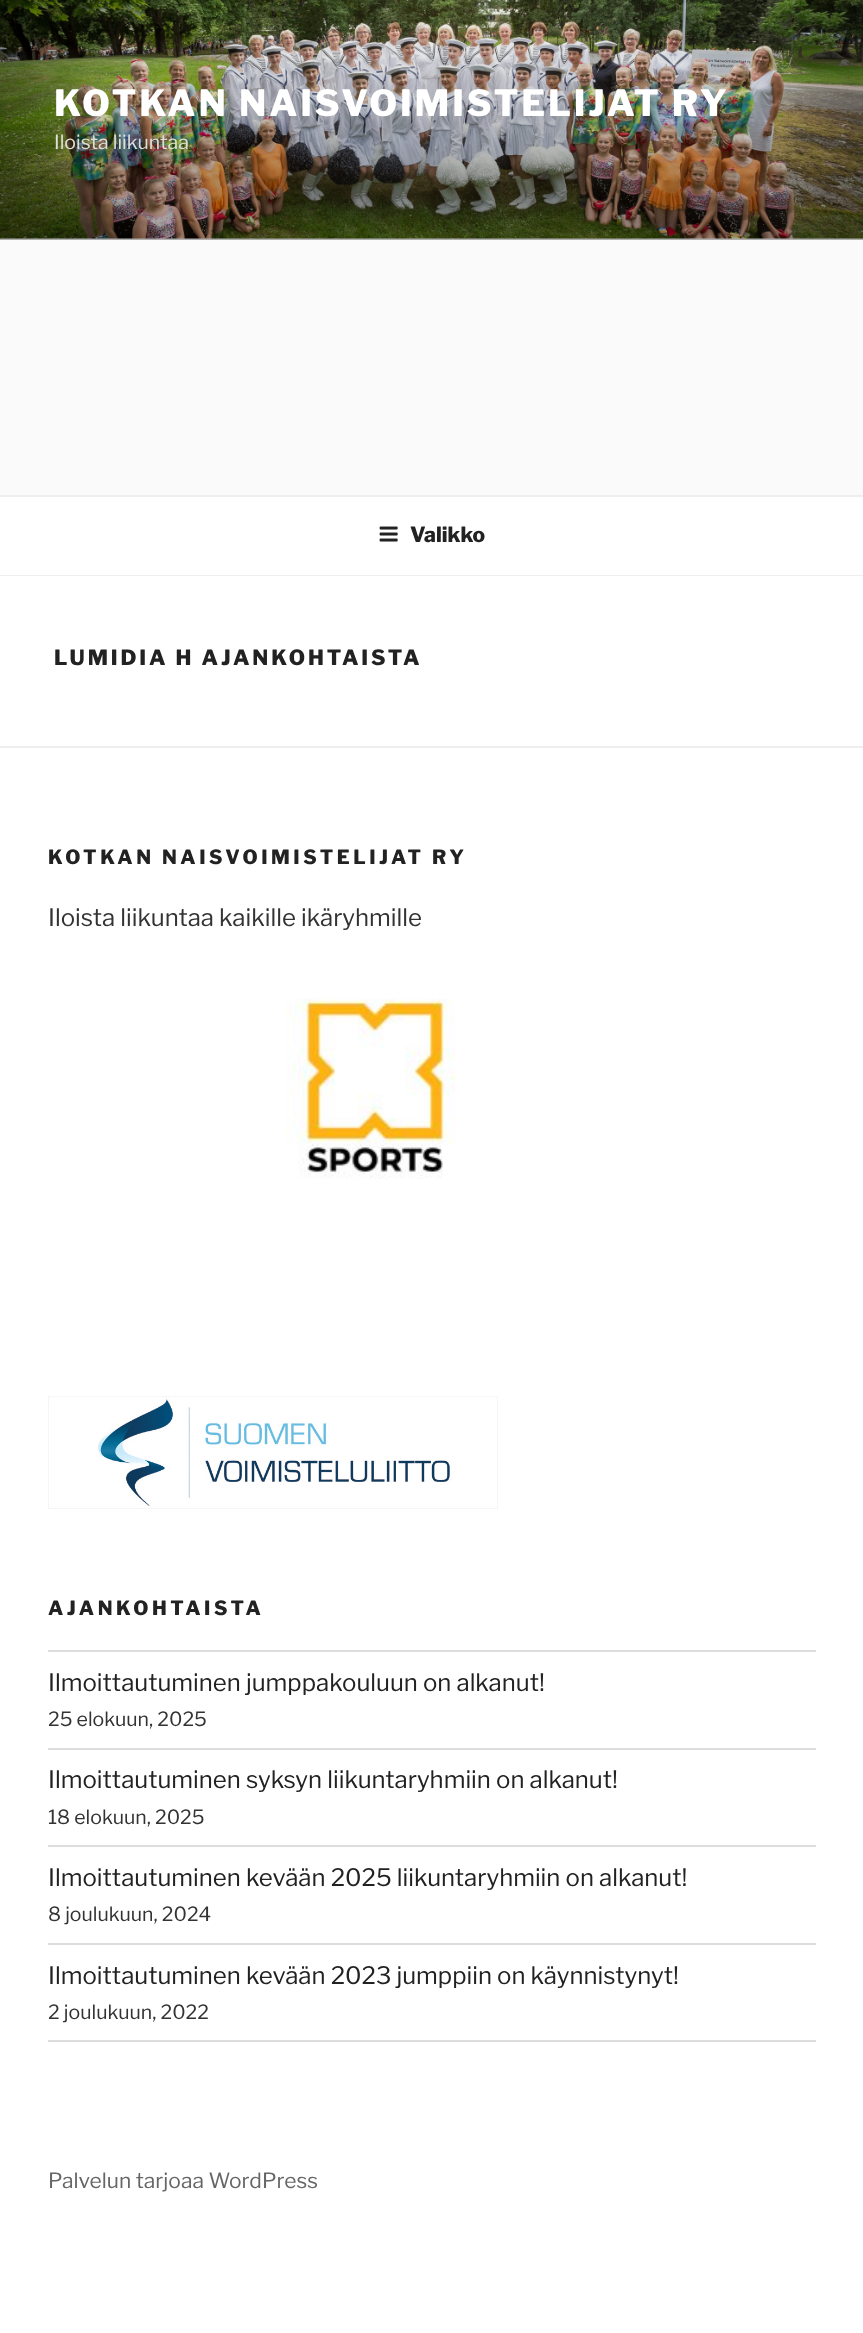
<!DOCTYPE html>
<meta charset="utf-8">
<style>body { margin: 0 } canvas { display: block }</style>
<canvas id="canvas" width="863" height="2333"></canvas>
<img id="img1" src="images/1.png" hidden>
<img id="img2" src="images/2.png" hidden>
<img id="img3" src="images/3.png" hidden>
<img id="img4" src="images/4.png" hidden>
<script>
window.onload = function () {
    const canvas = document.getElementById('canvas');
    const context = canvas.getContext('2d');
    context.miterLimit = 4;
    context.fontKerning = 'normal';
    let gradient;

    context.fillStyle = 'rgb(255, 255, 255)';
    context.fillRect(0, 0, 863, 2333);
    context.fillStyle = 'rgb(250, 250, 250)';
    context.fillRect(0, 238, 863, 257);
    context.drawImage(document.getElementById('img1'), 0, 0, 863, 239);
    gradient = context.createLinearGradient(432, 0, 432, 240);
    gradient.addColorStop(0, 'rgba(0, 0, 0, 0)');
    gradient.addColorStop(0.75, 'rgba(0, 0, 0, 0.3)');
    gradient.addColorStop(1, 'rgba(0, 0, 0, 0.3)');
    context.fillStyle = gradient;
    context.fillRect(0, 13, 863, 227);
    context.fillStyle = 'rgb(238, 238, 238)';
    context.fillRect(0, 495, 863, 2);
    context.fillRect(0, 575, 863, 1);
    context.drawImage(document.getElementById('img2'), 379, 526, 19, 16);
    context.fillRect(0, 746, 863, 2);
    context.drawImage(document.getElementById('img3'), 286, 998, 170, 181);
    context.drawImage(document.getElementById('img4'), 48, 1396, 450, 113);
    context.fillStyle = 'rgb(221, 221, 221)';
    context.fillRect(48, 1650, 768, 2);
    context.fillRect(48, 1748, 768, 2);
    context.fillRect(48, 1845, 768, 2);
    context.fillRect(48, 1943, 768, 2);
    context.fillRect(48, 2040, 768, 2);
    context.letterSpacing = '2.9px';
    context.font = '800 36px Libre Franklin';
    context.fillStyle = 'rgb(255, 255, 255)';
    context.fillText('KOTKAN NAISVOIMISTELIJAT RY', 54, 116);
    context.letterSpacing = '0px';
    context.font = '19.5px Libre Franklin';
    context.fillStyle = 'rgb(221, 223, 217)';
    context.fillText('Iloista liikuntaa', 54, 149);
    context.font = '800 21px Libre Franklin';
    context.fillStyle = 'rgb(34, 34, 34)';
    context.fillText('Valikko', 410, 542);
    context.letterSpacing = '2.9px';
    context.fillText('LUMIDIA H AJANKOHTAISTA', 54, 665);
    context.letterSpacing = '3.55px';
    context.font = '800 19.5px Libre Franklin';
    context.fillText('KOTKAN NAISVOIMISTELIJAT RY', 48, 864);
    context.letterSpacing = '0px';
    context.font = '24px Libre Franklin';
    context.fillStyle = 'rgb(51, 51, 51)';
    context.fillText('Iloista liikuntaa kaikille ikäryhmille', 48, 926);
    context.letterSpacing = '3.55px';
    context.font = '800 19.5px Libre Franklin';
    context.fillStyle = 'rgb(34, 34, 34)';
    context.fillText('AJANKOHTAISTA', 48, 1615);
    context.letterSpacing = '0px';
    context.font = '24px Libre Franklin';
    context.fillText('Ilmoittautuminen jumppakouluun on alkanut!', 48, 1691);
    context.font = '19.5px Libre Franklin';
    context.fillStyle = 'rgb(51, 51, 51)';
    context.fillText('25 elokuun, 2025', 48, 1726);
    context.font = '24px Libre Franklin';
    context.fillStyle = 'rgb(34, 34, 34)';
    context.fillText('Ilmoittautuminen syksyn liikuntaryhmiin on alkanut!', 48, 1788);
    context.font = '19.5px Libre Franklin';
    context.fillStyle = 'rgb(51, 51, 51)';
    context.fillText('18 elokuun, 2025', 48, 1824);
    context.font = '24px Libre Franklin';
    context.fillStyle = 'rgb(34, 34, 34)';
    context.fillText('Ilmoittautuminen kevään 2025 liikuntaryhmiin on alkanut!', 48, 1886);
    context.font = '19.5px Libre Franklin';
    context.fillStyle = 'rgb(51, 51, 51)';
    context.fillText('8 joulukuun, 2024', 48, 1921);
    context.font = '24px Libre Franklin';
    context.fillStyle = 'rgb(34, 34, 34)';
    context.fillText('Ilmoittautuminen kevään 2023 jumppiin on käynnistynyt!', 48, 1984);
    context.font = '19.5px Libre Franklin';
    context.fillStyle = 'rgb(51, 51, 51)';
    context.fillText('2 joulukuun, 2022', 48, 2019);
    context.font = '21px Libre Franklin';
    context.fillStyle = 'rgb(102, 102, 102)';
    context.fillText('Palvelun tarjoaa WordPress', 48, 2188);
};
</script>
